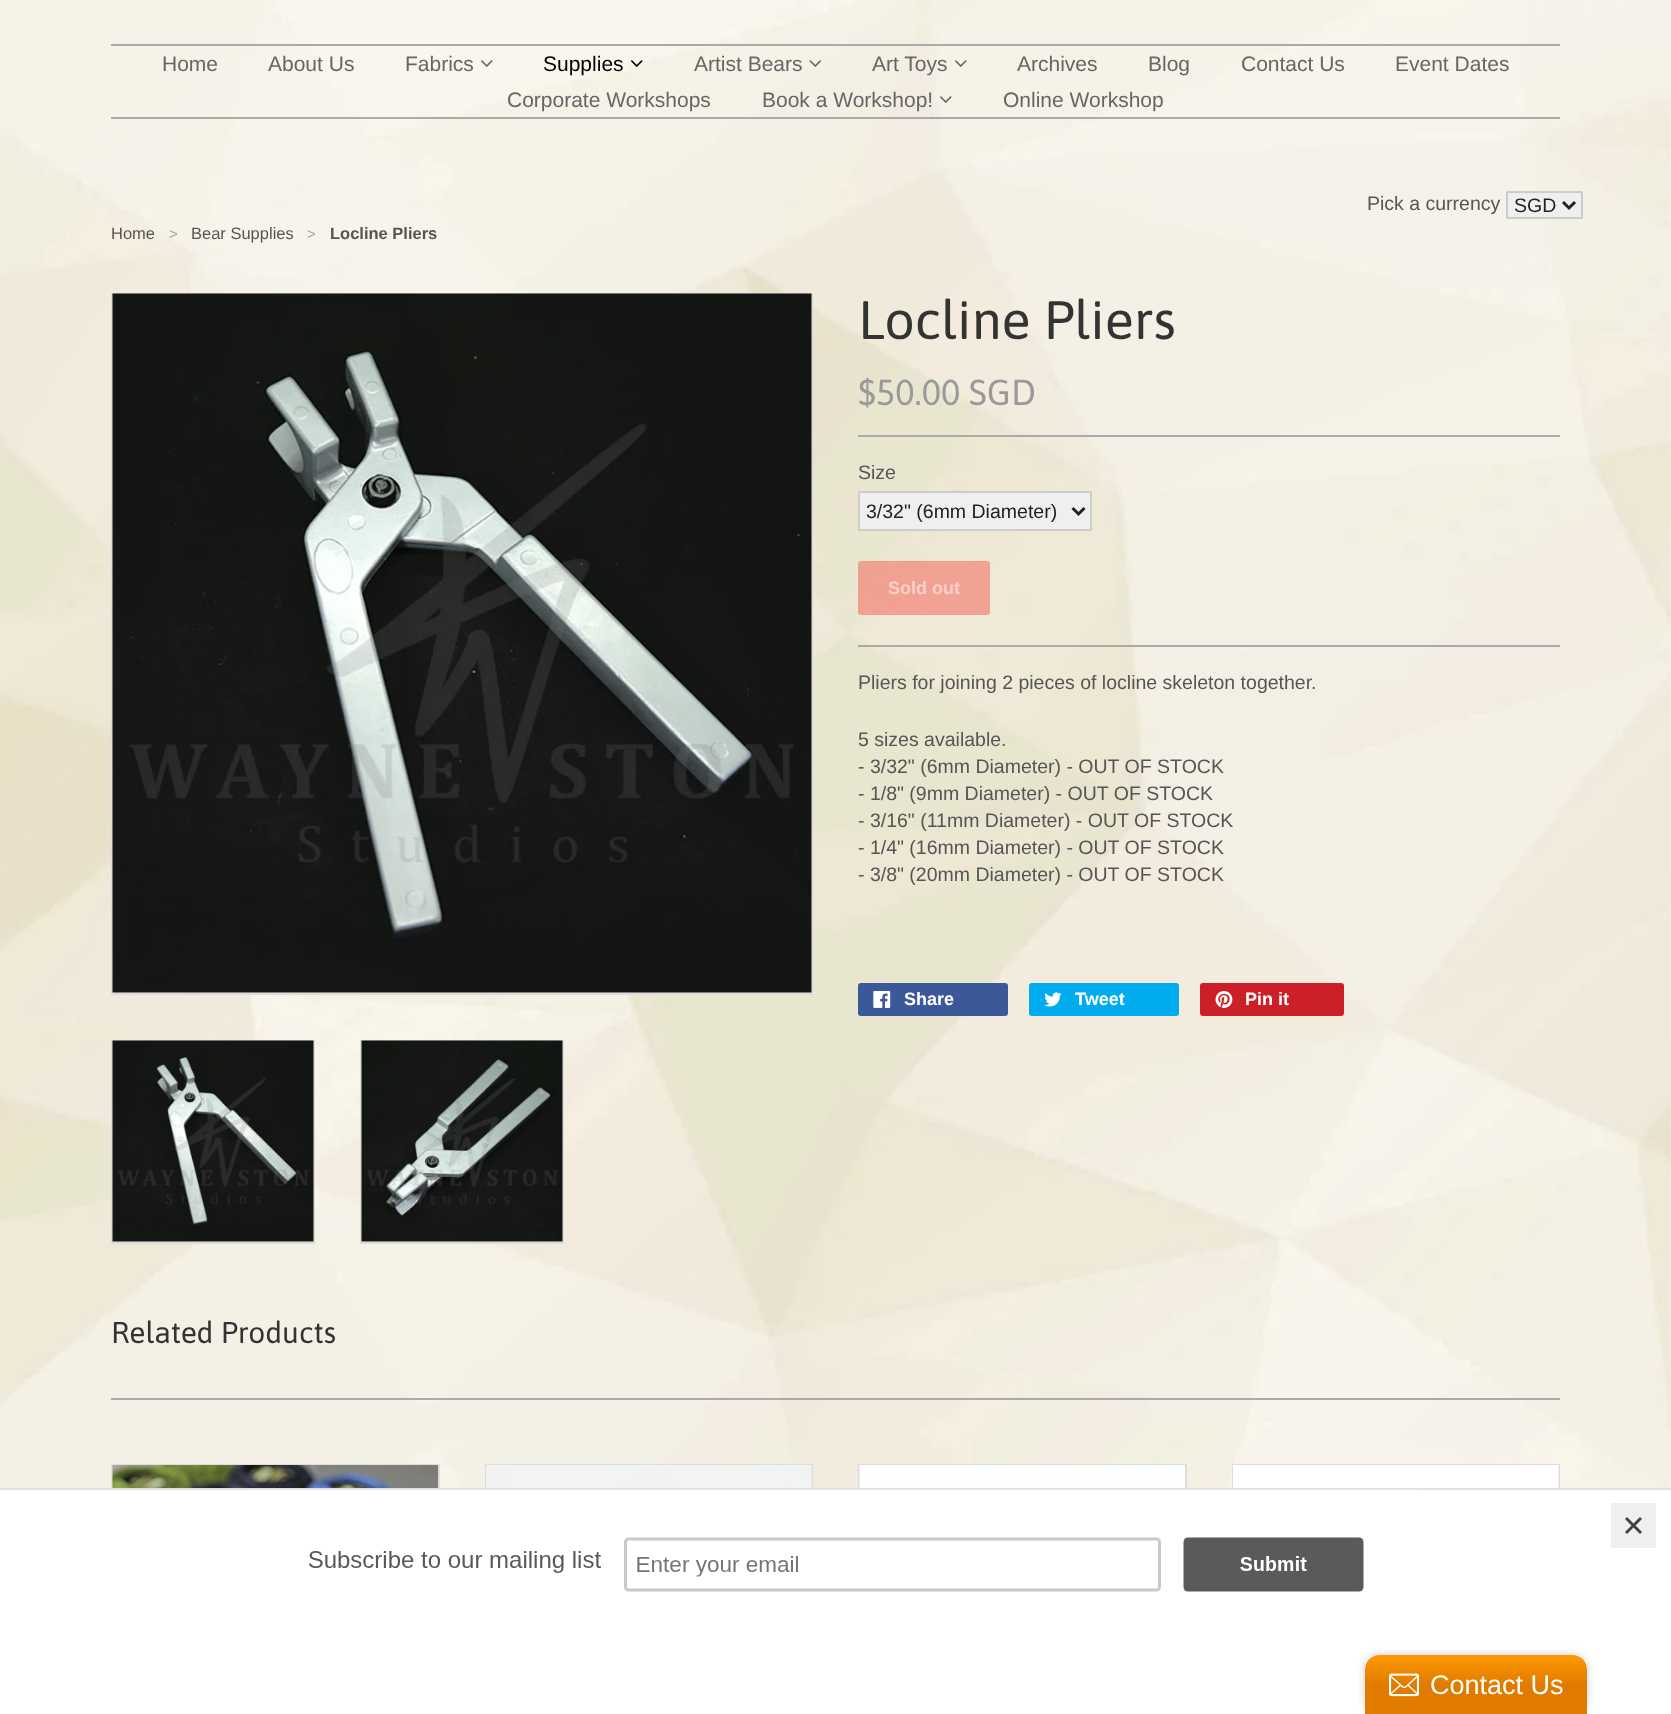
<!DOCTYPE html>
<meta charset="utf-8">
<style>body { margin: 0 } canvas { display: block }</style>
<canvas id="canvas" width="1671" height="1714"></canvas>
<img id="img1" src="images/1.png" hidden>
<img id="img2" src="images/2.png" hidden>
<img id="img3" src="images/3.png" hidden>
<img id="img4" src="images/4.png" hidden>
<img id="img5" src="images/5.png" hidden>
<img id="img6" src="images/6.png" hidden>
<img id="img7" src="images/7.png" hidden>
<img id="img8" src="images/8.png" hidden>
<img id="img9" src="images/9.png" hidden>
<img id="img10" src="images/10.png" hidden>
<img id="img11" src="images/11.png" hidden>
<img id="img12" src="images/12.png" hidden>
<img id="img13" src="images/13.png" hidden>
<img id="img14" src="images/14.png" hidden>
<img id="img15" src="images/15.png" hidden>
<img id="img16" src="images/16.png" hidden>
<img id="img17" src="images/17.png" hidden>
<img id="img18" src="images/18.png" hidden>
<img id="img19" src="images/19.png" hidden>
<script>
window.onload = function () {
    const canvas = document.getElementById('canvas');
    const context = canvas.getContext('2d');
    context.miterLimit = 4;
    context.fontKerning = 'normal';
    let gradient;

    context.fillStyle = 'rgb(255, 255, 255)';
    context.fillRect(0, 0, 1671, 1714);
    context.drawImage(document.getElementById('img1'), 0, 0, 1671, 1488);
    context.drawImage(document.getElementById('img2'), 1670, 0, 1, 1488);
    context.fillStyle = 'rgb(170, 170, 170)';
    context.fillRect(111, 44, 1449, 2);
    context.fillRect(111, 117, 1449, 2);
    context.drawImage(document.getElementById('img3'), 481, 60, 12, 7);
    context.drawImage(document.getElementById('img4'), 631, 60, 12, 7);
    context.drawImage(document.getElementById('img5'), 809, 60, 12, 7);
    context.drawImage(document.getElementById('img6'), 955, 60, 12, 7);
    context.drawImage(document.getElementById('img7'), 940, 96, 12, 7);
    context.fillStyle = 'rgb(239, 239, 239)';
    context.beginPath();
    context.roundRect(1507, 192, 75, 26, 0.5);
    context.fill();
    context.strokeStyle = 'rgb(204, 204, 204)';
    context.lineWidth = 2;
    context.stroke();
    context.beginPath();
    context.moveTo(1563, 202);
    context.lineTo(1569, 208);
    context.lineTo(1575, 202);
    context.strokeStyle = 'rgb(34, 34, 34)';
    context.lineWidth = 3;
    context.stroke();
    context.strokeStyle = 'rgb(221, 221, 221)';
    context.lineWidth = 2;
    context.strokeRect(112, 294, 700, 700);
    context.drawImage(document.getElementById('img8'), 112, 293, 700, 700);
    context.strokeRect(112, 1041, 202, 202);
    context.drawImage(document.getElementById('img9'), 112, 1040, 202, 202);
    context.strokeRect(361, 1041, 202, 202);
    context.drawImage(document.getElementById('img10'), 361, 1040, 202, 202);
    context.fillStyle = 'rgb(170, 170, 170)';
    context.fillRect(858, 435, 702, 2);
    context.fillRect(858, 645, 702, 2);
    context.fillStyle = 'rgb(239, 239, 239)';
    context.beginPath();
    context.roundRect(859, 492, 232, 38, 0.5);
    context.fill();
    context.strokeStyle = 'rgb(204, 204, 204)';
    context.stroke();
    context.beginPath();
    context.moveTo(1072.5, 508);
    context.lineTo(1078.5, 514);
    context.lineTo(1084.5, 508);
    context.strokeStyle = 'rgb(34, 34, 34)';
    context.lineWidth = 3;
    context.stroke();
    context.fillStyle = 'rgba(244, 91, 79, 0.5)';
    context.beginPath();
    context.roundRect(858, 561, 132, 54, 3);
    context.fill();
    context.fillStyle = 'rgb(59, 89, 152)';
    context.beginPath();
    context.roundRect(858, 983, 150, 33, 3);
    context.fill();
    context.drawImage(document.getElementById('img11'), 873, 991, 18, 17);
    context.fillStyle = 'rgb(0, 172, 237)';
    context.beginPath();
    context.roundRect(1029, 983, 150, 33, 3);
    context.fill();
    context.drawImage(document.getElementById('img12'), 1044, 992, 18, 15);
    context.fillStyle = 'rgb(203, 32, 39)';
    context.beginPath();
    context.roundRect(1200, 983, 144, 33, 3);
    context.fill();
    context.drawImage(document.getElementById('img13'), 1215, 991, 18, 17);
    context.fillStyle = 'rgb(170, 170, 170)';
    context.fillRect(111, 1398, 1449, 2);
    context.strokeStyle = 'rgb(221, 221, 221)';
    context.lineWidth = 2;
    context.strokeRect(112, 1465, 327, 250);
    context.drawImage(document.getElementById('img14'), 112, 1465, 326, 23);
    context.strokeRect(486, 1465, 326, 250);
    context.drawImage(document.getElementById('img15'), 486, 1465, 326, 23);
    context.strokeRect(859, 1465, 327, 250);
    context.drawImage(document.getElementById('img16'), 859, 1465, 326, 23);
    context.strokeRect(1233, 1465, 326, 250);
    context.drawImage(document.getElementById('img17'), 1233, 1465, 326, 23);
    context.fillStyle = 'rgb(255, 255, 255)';
    context.fillRect(111, 1490, 1449, 224);
    context.fillStyle = 'rgb(224, 224, 224)';
    context.fillRect(0, 1488, 1671, 2);
    context.drawImage(document.getElementById('img18'), 251, 1489, 1169, 103);
    context.fillStyle = 'rgb(239, 239, 239)';
    context.fillRect(1611, 1503, 45, 45);
    context.fillStyle = 'rgb(65, 65, 65)';
    context.beginPath();
    context.moveTo(1640, 1517);
    context.lineTo(1642, 1519);
    context.lineTo(1627, 1534);
    context.lineTo(1625, 1532);
    context.closePath();
    context.fill();
    context.beginPath();
    context.moveTo(1625, 1519);
    context.lineTo(1627, 1517);
    context.lineTo(1642, 1532);
    context.lineTo(1640, 1534);
    context.closePath();
    context.fill();
    context.fillStyle = 'rgba(0, 0, 0, 0.2)';
    context.filter = 'blur(4px)';
    context.beginPath();
    context.roundRect(1365, 1655, 222, 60, 15);
    context.fill();
    context.filter = 'none';
    gradient = context.createLinearGradient(1476, 1655, 1476, 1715);
    gradient.addColorStop(0, 'rgb(255, 153, 0)');
    gradient.addColorStop(0.5, 'rgb(225, 123, 0)');
    context.fillStyle = gradient;
    context.beginPath();
    context.moveTo(1380, 1655);
    context.lineTo(1572, 1655);
    context.bezierCurveTo(1580.5, 1655, 1587, 1661.5, 1587, 1670);
    context.lineTo(1587, 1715);
    context.lineTo(1365, 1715);
    context.lineTo(1365, 1670);
    context.bezierCurveTo(1365, 1661.5, 1371.5, 1655, 1380, 1655);
    context.closePath();
    context.fill();
    context.drawImage(document.getElementById('img19'), 1389, 1673, 30, 24);
    context.font = '21px Liberation Sans';
    context.fillStyle = 'rgb(102, 102, 102)';
    context.fillText('Home', 162, 71);
    context.fillText('About Us', 268, 71);
    context.fillText('Fabrics', 405, 71);
    context.fillStyle = 'rgb(0, 0, 0)';
    context.fillText('Supplies', 543, 71);
    context.fillStyle = 'rgb(102, 102, 102)';
    context.fillText('Artist Bears', 694, 71);
    context.fillText('Art Toys', 872, 71);
    context.fillText('Archives', 1017, 71);
    context.fillText('Blog', 1148, 71);
    context.fillText('Contact Us', 1241, 71);
    context.fillText('Event Dates', 1395, 71);
    context.fillText('Corporate Workshops', 507, 107);
    context.fillText('Book a Workshop!', 762, 107);
    context.fillText('Online Workshop', 1003, 107);
    context.font = '19.5px Liberation Sans';
    context.fillStyle = 'rgb(85, 85, 85)';
    context.fillText('Pick a currency', 1367, 210);
    context.fillStyle = 'rgb(34, 34, 34)';
    context.fillText('SGD', 1514, 212);
    context.font = '16.5px Liberation Sans';
    context.fillStyle = 'rgb(85, 85, 85)';
    context.fillText('Home', 111, 239);
    context.font = '15px Liberation Sans';
    context.fillStyle = 'rgb(165, 164, 158)';
    context.fillText('>', 169, 239);
    context.font = '16.5px Liberation Sans';
    context.fillStyle = 'rgb(85, 85, 85)';
    context.fillText('Bear Supplies', 191, 239);
    context.font = '15px Liberation Sans';
    context.fillStyle = 'rgb(165, 164, 158)';
    context.fillText('>', 307, 239);
    context.font = 'bold 16.5px Liberation Sans';
    context.fillStyle = 'rgb(85, 85, 85)';
    context.fillText('Locline Pliers', 330, 239);
    context.font = '54px Asap';
    context.fillStyle = 'rgb(51, 51, 51)';
    context.fillText('Locline Pliers', 858, 339);
    context.font = '36px Asap';
    context.fillStyle = 'rgb(153, 153, 153)';
    context.fillText('$50.00 SGD', 858, 405);
    context.font = '19.5px Liberation Sans';
    context.fillStyle = 'rgb(85, 85, 85)';
    context.fillText('Size', 858, 479);
    context.fillStyle = 'rgb(34, 34, 34)';
    context.fillText('3/32" (6mm Diameter)', 866, 518);
    context.font = 'bold 18px Liberation Sans';
    context.fillStyle = 'rgb(248, 208, 201)';
    context.fillText('Sold out', 888, 594);
    context.font = '19.5px Liberation Sans';
    context.fillStyle = 'rgb(85, 85, 85)';
    context.fillText('Pliers for joining 2 pieces of locline skeleton together.', 858, 689);
    context.fillText('5 sizes available.', 858, 746);
    context.fillText('- 3/32" (6mm Diameter) - OUT OF STOCK', 858, 773);
    context.fillText('- 1/8" (9mm Diameter) - OUT OF STOCK', 858, 800);
    context.fillText('- 3/16" (11mm Diameter) - OUT OF STOCK', 858, 827);
    context.fillText('- 1/4" (16mm Diameter) - OUT OF STOCK', 858, 854);
    context.fillText('- 3/8" (20mm Diameter) - OUT OF STOCK', 858, 881);
    context.font = 'bold 18px Liberation Sans';
    context.fillStyle = 'rgb(255, 255, 255)';
    context.fillText('Share', 904, 1005);
    context.fillText('Tweet', 1075, 1005);
    context.fillText('Pin it', 1245, 1005);
    context.font = '30px Asap';
    context.fillStyle = 'rgb(51, 51, 51)';
    context.fillText('Related Products', 111, 1343);
    context.font = '27px Liberation Sans';
    context.fillStyle = 'rgb(255, 255, 255)';
    context.fillText('Contact Us', 1430, 1694);
};
</script>
